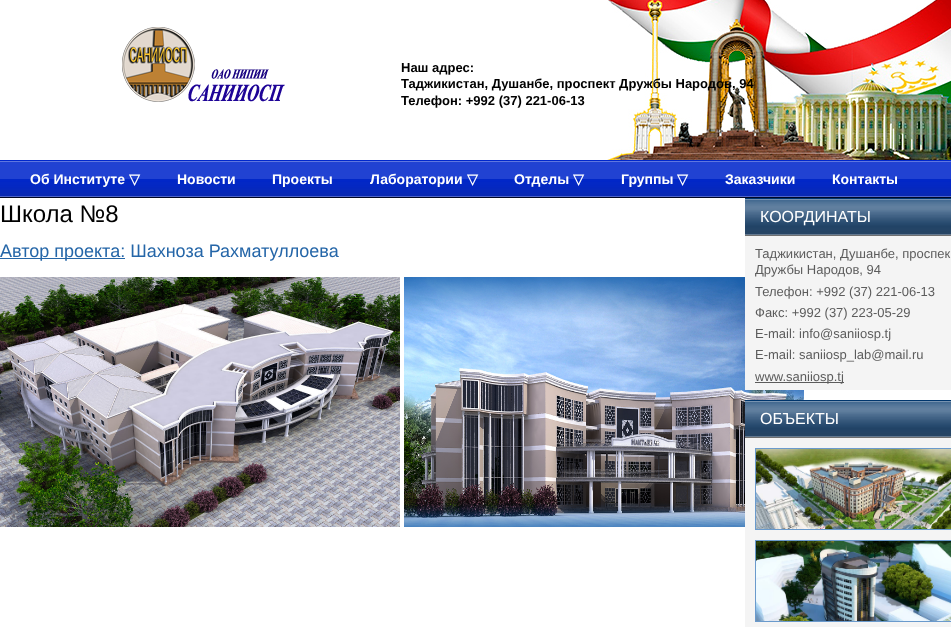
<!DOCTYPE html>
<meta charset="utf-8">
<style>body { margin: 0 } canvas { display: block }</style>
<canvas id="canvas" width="951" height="627"></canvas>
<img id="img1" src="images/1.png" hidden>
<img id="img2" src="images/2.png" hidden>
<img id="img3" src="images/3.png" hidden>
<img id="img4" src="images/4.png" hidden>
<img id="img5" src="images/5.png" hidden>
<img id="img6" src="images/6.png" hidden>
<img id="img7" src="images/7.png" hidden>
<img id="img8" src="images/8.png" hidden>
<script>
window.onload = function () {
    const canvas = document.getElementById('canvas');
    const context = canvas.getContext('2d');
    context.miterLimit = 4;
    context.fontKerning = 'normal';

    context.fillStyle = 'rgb(255, 255, 255)';
    context.fillRect(0, 0, 951, 627);
    context.drawImage(document.getElementById('img1'), 607, 0, 344, 160);
    context.drawImage(document.getElementById('img2'), 122, 27, 163, 75);
    context.fillStyle = 'rgb(0, 39, 204)';
    context.fillRect(0, 160, 951, 38);
    context.drawImage(document.getElementById('img3'), 0, 161, 951, 37);
    context.fillStyle = 'rgb(37, 102, 168)';
    context.fillRect(0, 258, 125, 1);
    context.drawImage(document.getElementById('img4'), 0, 277, 400, 250);
    context.drawImage(document.getElementById('img5'), 404, 277, 400, 250);
    context.fillStyle = 'rgb(244, 244, 244)';
    context.fillRect(745, 236, 206, 154);
    context.fillStyle = 'rgb(0, 54, 109)';
    context.fillRect(745, 198, 206, 37);
    context.drawImage(document.getElementById('img6'), 745, 199, 206, 37);
    context.fillStyle = 'rgb(92, 92, 92)';
    context.fillRect(755, 382, 89, 1);
    context.fillStyle = 'rgb(244, 244, 244)';
    context.fillRect(745, 438, 206, 189);
    context.fillStyle = 'rgb(0, 54, 109)';
    context.fillRect(745, 400, 206, 37);
    context.drawImage(document.getElementById('img6'), 745, 401, 206, 37);
    context.strokeStyle = 'rgb(106, 154, 204)';
    context.strokeRect(755.5, 448.5, 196, 81);
    context.drawImage(document.getElementById('img7'), 756, 449, 195, 80);
    context.strokeRect(755.5, 540.5, 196, 81);
    context.drawImage(document.getElementById('img8'), 756, 541, 195, 80);
    context.font = 'bold 13px Liberation Sans';
    context.fillStyle = 'rgb(0, 0, 0)';
    context.fillText('Наш адрес:', 401, 72);
    context.fillText('Таджикистан, Душанбе, проспект Дружбы Народов, 94', 401, 88);
    context.fillText('Телефон: +992 (37) 221-06-13', 401, 105);
    context.font = 'bold 14px Liberation Sans';
    context.fillStyle = 'rgb(255, 255, 255)';
    context.fillText('Об Институте', 30, 184);
    context.font = 'bold 14px DejaVu Sans';
    context.fillText('▽', 129, 184);
    context.font = 'bold 14px Liberation Sans';
    context.fillText('Новости', 177, 184);
    context.fillText('Проекты', 272, 184);
    context.fillText('Лаборатории', 370, 184);
    context.font = 'bold 14px DejaVu Sans';
    context.fillText('▽', 467, 184);
    context.font = 'bold 14px Liberation Sans';
    context.fillText('Отделы', 514, 184);
    context.font = 'bold 14px DejaVu Sans';
    context.fillText('▽', 573, 184);
    context.font = 'bold 14px Liberation Sans';
    context.fillText('Группы', 621, 184);
    context.font = 'bold 14px DejaVu Sans';
    context.fillText('▽', 677, 184);
    context.font = 'bold 14px Liberation Sans';
    context.fillText('Заказчики', 725, 184);
    context.fillText('Контакты', 832, 184);
    context.font = '24px Liberation Sans';
    context.fillStyle = 'rgb(0, 0, 0)';
    context.fillText('Школа №8', 0, 222);
    context.font = '18px Liberation Sans';
    context.fillStyle = 'rgb(37, 102, 168)';
    context.fillText('Автор проекта: Шахноза Рахматуллоева', 0, 257);
    context.font = '16px Liberation Sans';
    context.fillStyle = 'rgb(255, 255, 255)';
    context.fillText('КООРДИНАТЫ', 760, 222);
    context.font = '13px Liberation Sans';
    context.fillStyle = 'rgb(92, 92, 92)';
    context.fillText('Таджикистан, Душанбе, проспек', 755, 258);
    context.fillText('Дружбы Народов, 94', 755, 274);
    context.fillText('Телефон: +992 (37) 221-06-13', 755, 296);
    context.fillText('Факс: +992 (37) 223-05-29', 755, 317);
    context.fillText('E-mail: info@saniiosp.tj', 755, 338);
    context.fillText('E-mail: saniiosp_lab@mail.ru', 755, 359);
    context.fillText('www.saniiosp.tj', 755, 381);
    context.font = '16px Liberation Sans';
    context.fillStyle = 'rgb(255, 255, 255)';
    context.fillText('ОБЪЕКТЫ', 760, 424);
};
</script>
